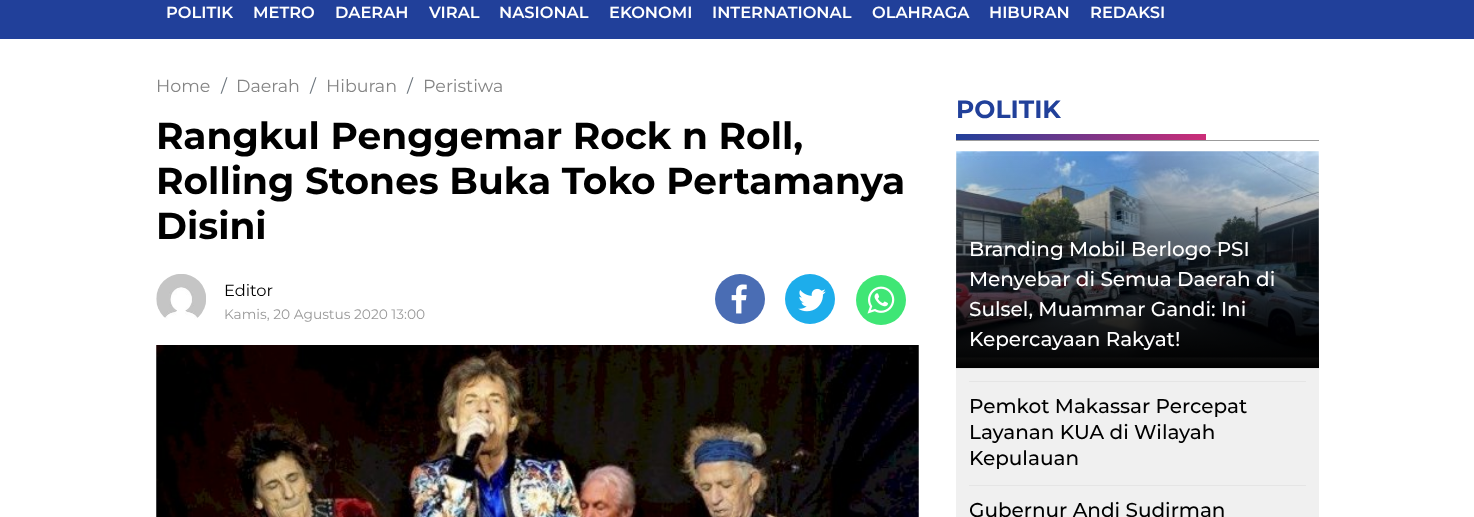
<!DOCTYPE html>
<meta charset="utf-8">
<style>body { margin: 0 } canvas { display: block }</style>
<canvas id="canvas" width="1474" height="517"></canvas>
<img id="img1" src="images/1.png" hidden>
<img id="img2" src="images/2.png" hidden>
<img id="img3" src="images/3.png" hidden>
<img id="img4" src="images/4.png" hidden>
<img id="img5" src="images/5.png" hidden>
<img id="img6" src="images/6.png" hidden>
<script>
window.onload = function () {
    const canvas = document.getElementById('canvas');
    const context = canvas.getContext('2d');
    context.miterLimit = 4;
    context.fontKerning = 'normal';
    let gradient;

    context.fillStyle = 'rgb(255, 255, 255)';
    context.fillRect(0, 0, 1474, 517);
    context.fillStyle = 'rgb(33, 64, 154)';
    context.fillRect(0, 0, 1474, 39);
    context.drawImage(document.getElementById('img1'), 156, 274, 50, 45);
    context.fillStyle = 'rgb(74, 109, 180)';
    context.beginPath();
    context.arc(740, 299, 25, 0, 2 * Math.PI);
    context.fill();
    context.drawImage(document.getElementById('img2'), 731, 284, 16, 30);
    context.fillStyle = 'rgb(29, 173, 235)';
    context.beginPath();
    context.arc(810, 299, 25, 0, 2 * Math.PI);
    context.fill();
    context.drawImage(document.getElementById('img3'), 798, 288, 28, 24);
    context.fillStyle = 'rgb(63, 230, 117)';
    context.beginPath();
    context.arc(881, 300, 25, 0, 2 * Math.PI);
    context.fill();
    context.drawImage(document.getElementById('img4'), 867, 286, 28, 28);
    context.drawImage(document.getElementById('img5'), 156, 345, 763, 172);
    context.fillStyle = 'rgb(155, 155, 155)';
    context.fillRect(956, 140, 363, 1);
    gradient = context.createLinearGradient(956, 137, 1206, 137);
    gradient.addColorStop(0, 'rgb(33, 64, 154)');
    gradient.addColorStop(1, 'rgb(204, 45, 120)');
    context.fillStyle = gradient;
    context.fillRect(956, 134, 250, 6);
    context.drawImage(document.getElementById('img6'), 956, 151, 363, 207);
    gradient = context.createLinearGradient(1138, 151, 1138, 368);
    gradient.addColorStop(0, 'rgba(0, 0, 0, 0)');
    gradient.addColorStop(1, 'rgb(0, 0, 0)');
    context.fillStyle = gradient;
    context.fillRect(956, 156, 363, 212);
    context.fillStyle = 'rgb(240, 240, 240)';
    context.fillRect(956, 369, 363, 148);
    context.fillStyle = 'rgb(229, 229, 229)';
    context.fillRect(956, 368, 363, 1);
    context.fillRect(969, 381, 337, 1);
    context.fillRect(969, 485, 337, 1);
    context.font = '100 16.25px Montserrat';
    context.fillStyle = 'rgb(255, 255, 255)';
    context.fillText('POLITIK', 166, 18);
    context.fillText('METRO', 253, 18);
    context.fillText('DAERAH', 335, 18);
    context.fillText('VIRAL', 429, 18);
    context.fillText('NASIONAL', 499, 18);
    context.fillText('EKONOMI', 609, 18);
    context.fillText('INTERNATIONAL', 712, 18);
    context.fillText('OLAHRAGA', 872, 18);
    context.fillText('HIBURAN', 989, 18);
    context.fillText('REDAKSI', 1090, 18);
    context.font = '100 17.5px "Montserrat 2"';
    context.fillStyle = 'rgb(132, 132, 132)';
    context.fillText('Home', 156, 92);
    context.fillStyle = 'rgb(108, 117, 125)';
    context.fillText('/', 221, 92);
    context.fillStyle = 'rgb(132, 132, 132)';
    context.fillText('Daerah', 236, 92);
    context.fillStyle = 'rgb(108, 117, 125)';
    context.fillText('/', 310, 92);
    context.fillStyle = 'rgb(132, 132, 132)';
    context.fillText('Hiburan', 326, 92);
    context.fillStyle = 'rgb(108, 117, 125)';
    context.fillText('/', 407, 92);
    context.fillStyle = 'rgb(132, 132, 132)';
    context.fillText('Peristiwa', 423, 92);
    context.font = '100 37.5px "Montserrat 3"';
    context.fillStyle = 'rgb(0, 0, 0)';
    context.fillText('Rangkul Penggemar Rock n Roll,', 156, 149);
    context.fillText('Rolling Stones Buka Toko Pertamanya', 156, 194);
    context.fillText('Disini', 156, 239);
    context.font = '100 16.25px "Montserrat 2"';
    context.fillText('Editor', 224, 296);
    context.font = '100 13.75px "Montserrat 2"';
    context.fillStyle = 'rgb(153, 153, 153)';
    context.fillText('Kamis, 20 Agustus 2020 13:00', 224, 319);
    context.font = '100 25px "Montserrat 3"';
    context.fillStyle = 'rgb(33, 64, 154)';
    context.fillText('POLITIK', 956, 118);
    context.font = '100 20px "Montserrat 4"';
    context.fillStyle = 'rgb(255, 255, 255)';
    context.fillText('Branding Mobil Berlogo PSI', 969, 256);
    context.fillText('Menyebar di Semua Daerah di', 969, 286);
    context.fillText('Sulsel, Muammar Gandi: Ini', 969, 316);
    context.fillText('Kepercayaan Rakyat!', 969, 346);
    context.fillStyle = 'rgb(0, 0, 0)';
    context.fillText('Pemkot Makassar Percepat', 969, 413);
    context.fillText('Layanan KUA di Wilayah', 969, 439);
    context.fillText('Kepulauan', 969, 465);
    context.fillText('Gubernur Andi Sudirman', 969, 517);
};
</script>
